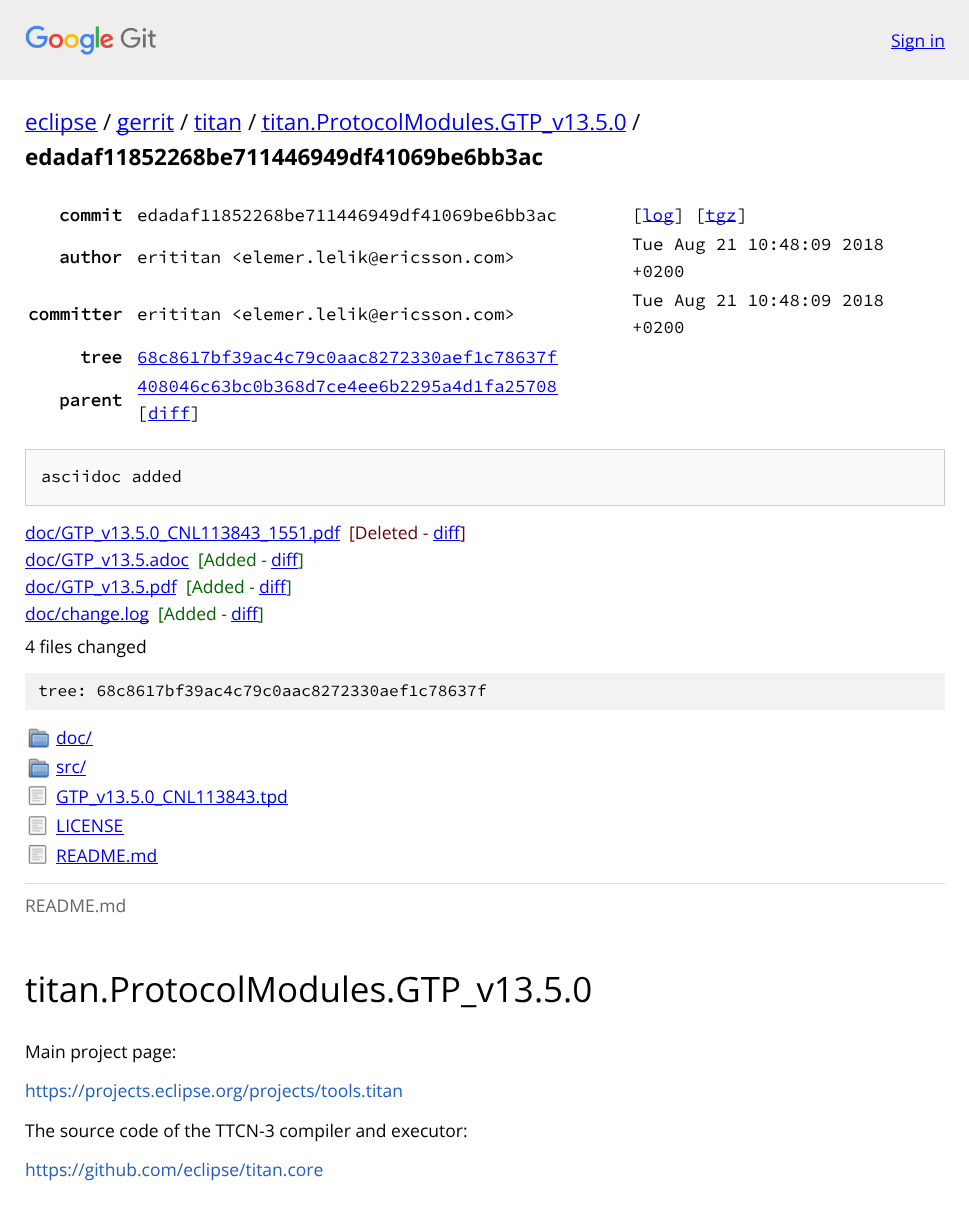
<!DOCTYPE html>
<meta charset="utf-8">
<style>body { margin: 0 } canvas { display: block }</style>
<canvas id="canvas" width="969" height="1226"></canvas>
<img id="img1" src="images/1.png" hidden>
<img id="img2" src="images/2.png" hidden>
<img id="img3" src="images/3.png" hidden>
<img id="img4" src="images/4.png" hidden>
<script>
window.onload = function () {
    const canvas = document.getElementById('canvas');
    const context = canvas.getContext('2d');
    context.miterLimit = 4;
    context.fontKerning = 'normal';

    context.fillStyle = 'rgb(255, 255, 255)';
    context.fillRect(0, 0, 969, 1226);
    context.fillStyle = 'rgb(238, 238, 238)';
    context.fillRect(0, 0, 969, 80);
    context.drawImage(document.getElementById('img1'), 25, 25, 131, 30);
    context.fillStyle = 'rgb(0, 0, 238)';
    context.fillRect(891, 48, 54, 1);
    context.fillRect(25, 131, 73, 1);
    context.fillRect(116, 131, 58, 1);
    context.fillRect(194, 131, 47, 1);
    context.fillRect(261, 131, 365, 1);
    context.fillRect(643, 221, 31, 1);
    context.fillRect(705, 221, 31, 1);
    context.fillRect(138, 364, 420, 1);
    context.fillRect(138, 394, 420, 1);
    context.fillRect(148, 420, 42, 1);
    context.fillStyle = 'rgb(250, 250, 250)';
    context.beginPath();
    context.rect(25.5, 449.5, 919, 56);
    context.fill();
    context.strokeStyle = 'rgb(204, 204, 204)';
    context.stroke();
    context.fillStyle = 'rgb(0, 0, 238)';
    context.fillRect(25, 540, 315, 1);
    context.fillRect(433, 540, 27, 1);
    context.fillRect(25, 568, 164, 1);
    context.fillRect(271, 568, 27, 1);
    context.fillRect(25, 594, 151, 1);
    context.fillRect(259, 594, 27, 1);
    context.fillRect(25, 621, 124, 1);
    context.fillRect(231, 621, 28, 1);
    context.fillStyle = 'rgb(241, 242, 243)';
    context.fillRect(25, 673, 920, 37);
    context.drawImage(document.getElementById('img2'), 28, 728, 21, 20);
    context.fillStyle = 'rgb(0, 0, 238)';
    context.fillRect(56, 745, 37, 1);
    context.drawImage(document.getElementById('img2'), 28, 758, 21, 20);
    context.fillRect(56, 775, 30, 1);
    context.drawImage(document.getElementById('img3'), 28, 786, 19, 20);
    context.fillRect(56, 804, 232, 1);
    context.drawImage(document.getElementById('img3'), 28, 816, 19, 20);
    context.fillRect(56, 834, 68, 1);
    context.drawImage(document.getElementById('img4'), 28, 845, 19, 19);
    context.fillRect(56, 863, 102, 1);
    context.fillStyle = 'rgb(221, 221, 221)';
    context.fillRect(25, 883, 920, 1);
    context.font = '17.5px Open Sans';
    context.fillStyle = 'rgb(0, 0, 238)';
    context.fillText('Sign in', 891, 47);
    context.font = '22.5px Open Sans';
    context.fillText('eclipse', 25, 130);
    context.fillStyle = 'rgb(0, 0, 0)';
    context.fillText('/', 103, 130);
    context.fillStyle = 'rgb(0, 0, 238)';
    context.fillText('gerrit', 117, 130);
    context.fillStyle = 'rgb(0, 0, 0)';
    context.fillText('/', 180, 130);
    context.fillStyle = 'rgb(0, 0, 238)';
    context.fillText('titan', 194, 130);
    context.fillStyle = 'rgb(0, 0, 0)';
    context.fillText('/', 248, 130);
    context.fillStyle = 'rgb(0, 0, 238)';
    context.fillText('titan.ProtocolModules.GTP_v13.5.0', 262, 130);
    context.fillStyle = 'rgb(0, 0, 0)';
    context.fillText('/', 632, 130);
    context.font = 'bold 22.5px Open Sans';
    context.fillText('edadaf11852268be711446949df41069be6bb3ac', 25, 165);
    context.font = 'bold 17.5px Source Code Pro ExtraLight';
    context.fillText('commit', 59, 221);
    context.font = '200 17.5px Source Code Pro ExtraLight';
    context.fillText('edadaf11852268be711446949df41069be6bb3ac', 137, 221);
    context.fillText('[', 632, 221);
    context.fillStyle = 'rgb(0, 0, 238)';
    context.fillText('log', 642, 221);
    context.fillStyle = 'rgb(0, 0, 0)';
    context.fillText('] [', 674, 221);
    context.fillStyle = 'rgb(0, 0, 238)';
    context.fillText('tgz', 705, 221);
    context.fillStyle = 'rgb(0, 0, 0)';
    context.fillText(']', 737, 221);
    context.font = 'bold 17.5px Source Code Pro ExtraLight';
    context.fillText('author', 59, 263);
    context.font = '200 17.5px Source Code Pro ExtraLight';
    context.fillText('erititan <elemer.lelik@ericsson.com>', 137, 263);
    context.fillText('Tue Aug 21 10:48:09 2018', 632, 250);
    context.fillText('+0200', 632, 277);
    context.font = 'bold 17.5px Source Code Pro ExtraLight';
    context.fillText('committer', 28, 320);
    context.font = '200 17.5px Source Code Pro ExtraLight';
    context.fillText('erititan <elemer.lelik@ericsson.com>', 137, 320);
    context.fillText('Tue Aug 21 10:48:09 2018', 632, 306);
    context.fillText('+0200', 632, 333);
    context.font = 'bold 17.5px Source Code Pro ExtraLight';
    context.fillText('tree', 80, 363);
    context.font = '200 17.5px Source Code Pro ExtraLight';
    context.fillStyle = 'rgb(0, 0, 238)';
    context.fillText('68c8617bf39ac4c79c0aac8272330aef1c78637f', 137, 363);
    context.font = 'bold 17.5px Source Code Pro ExtraLight';
    context.fillStyle = 'rgb(0, 0, 0)';
    context.fillText('parent', 59, 406);
    context.font = '200 17.5px Source Code Pro ExtraLight';
    context.fillStyle = 'rgb(0, 0, 238)';
    context.fillText('408046c63bc0b368d7ce4ee6b2295a4d1fa25708', 137, 392);
    context.fillStyle = 'rgb(0, 0, 0)';
    context.fillText('[', 137, 419);
    context.fillStyle = 'rgb(0, 0, 238)';
    context.fillText('diff', 148, 419);
    context.fillStyle = 'rgb(0, 0, 0)';
    context.fillText(']', 190, 419);
    context.font = '200 16.75px Source Code Pro ExtraLight';
    context.fillText('asciidoc added', 41, 482);
    context.font = '17.5px Open Sans';
    context.fillStyle = 'rgb(0, 0, 238)';
    context.fillText('doc/GTP_v13.5.0_CNL113843_1551.pdf', 25, 539);
    context.fillStyle = 'rgb(102, 0, 0)';
    context.fillText('[Deleted -', 349, 539);
    context.fillStyle = 'rgb(0, 0, 238)';
    context.fillText('diff', 433, 539);
    context.fillStyle = 'rgb(102, 0, 0)';
    context.fillText(']', 460, 539);
    context.fillStyle = 'rgb(0, 0, 238)';
    context.fillText('doc/GTP_v13.5.adoc', 25, 566);
    context.fillStyle = 'rgb(0, 102, 0)';
    context.fillText('[Added -', 198, 566);
    context.fillStyle = 'rgb(0, 0, 238)';
    context.fillText('diff', 271, 566);
    context.fillStyle = 'rgb(0, 102, 0)';
    context.fillText(']', 298, 566);
    context.fillStyle = 'rgb(0, 0, 238)';
    context.fillText('doc/GTP_v13.5.pdf', 25, 593);
    context.fillStyle = 'rgb(0, 102, 0)';
    context.fillText('[Added -', 186, 593);
    context.fillStyle = 'rgb(0, 0, 238)';
    context.fillText('diff', 259, 593);
    context.fillStyle = 'rgb(0, 102, 0)';
    context.fillText(']', 286, 593);
    context.fillStyle = 'rgb(0, 0, 238)';
    context.fillText('doc/change.log', 25, 620);
    context.fillStyle = 'rgb(0, 102, 0)';
    context.fillText('[Added -', 158, 620);
    context.fillStyle = 'rgb(0, 0, 238)';
    context.fillText('diff', 231, 620);
    context.fillStyle = 'rgb(0, 102, 0)';
    context.fillText(']', 258, 620);
    context.fillStyle = 'rgb(0, 0, 0)';
    context.fillText('4 files changed', 25, 653);
    context.font = '200 16.25px Source Code Pro ExtraLight';
    context.fillText('tree: 68c8617bf39ac4c79c0aac8272330aef1c78637f', 38, 696);
    context.font = '17.5px Open Sans';
    context.fillStyle = 'rgb(0, 0, 238)';
    context.fillText('doc/', 56, 744);
    context.fillText('src/', 56, 773);
    context.fillText('GTP_v13.5.0_CNL113843.tpd', 56, 803);
    context.fillText('LICENSE', 56, 832);
    context.fillText('README.md', 56, 862);
    context.fillStyle = 'rgb(102, 102, 102)';
    context.fillText('README.md', 25, 912);
    context.font = '35px Open Sans';
    context.fillStyle = 'rgb(0, 0, 0)';
    context.fillText('titan.ProtocolModules.GTP_v13.5.0', 25, 1002);
    context.font = '17.5px Open Sans';
    context.fillText('Main project page:', 25, 1058);
    context.fillStyle = 'rgb(36, 93, 193)';
    context.fillText('https://projects.eclipse.org/projects/tools.titan', 25, 1097);
    context.fillStyle = 'rgb(0, 0, 0)';
    context.fillText('The source code of the TTCN-3 compiler and executor:', 25, 1137);
    context.fillStyle = 'rgb(36, 93, 193)';
    context.fillText('https://github.com/eclipse/titan.core', 25, 1176);
};
</script>
